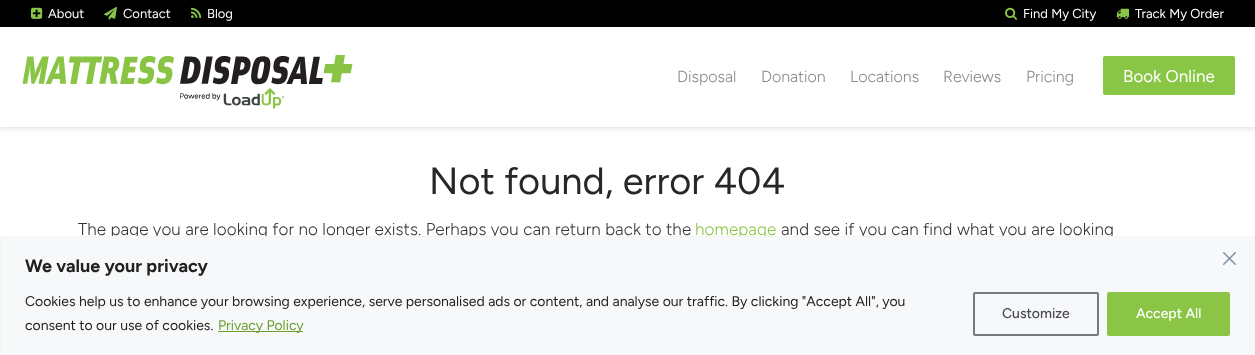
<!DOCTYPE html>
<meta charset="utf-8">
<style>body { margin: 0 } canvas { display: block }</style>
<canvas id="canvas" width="1255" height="355"></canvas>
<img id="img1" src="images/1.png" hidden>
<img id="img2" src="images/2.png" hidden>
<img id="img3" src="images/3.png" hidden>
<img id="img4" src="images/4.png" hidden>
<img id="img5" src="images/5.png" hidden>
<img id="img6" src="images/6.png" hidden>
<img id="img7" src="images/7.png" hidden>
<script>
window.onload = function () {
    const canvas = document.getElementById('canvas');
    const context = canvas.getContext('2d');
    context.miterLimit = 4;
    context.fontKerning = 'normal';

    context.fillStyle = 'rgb(255, 255, 255)';
    context.fillRect(0, 0, 1255, 355);
    context.fillStyle = 'rgb(0, 0, 0)';
    context.fillRect(0, 0, 1255, 27);
    context.drawImage(document.getElementById('img1'), 31, 7, 12, 12);
    context.drawImage(document.getElementById('img2'), 104, 6, 13, 14);
    context.drawImage(document.getElementById('img3'), 191, 7, 11, 11);
    context.drawImage(document.getElementById('img4'), 1005, 7, 12, 13);
    context.drawImage(document.getElementById('img5'), 1116, 8, 13, 11);
    context.fillStyle = 'rgba(0, 0, 0, 0.21)';
    context.filter = 'blur(4.5px)';
    context.beginPath();
    context.rect(-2, 22, 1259, 104);
    context.fill();
    context.filter = 'none';
    context.fillStyle = 'rgb(255, 255, 255)';
    context.fillRect(0, 27, 1255, 100);
    context.drawImage(document.getElementById('img6'), 22, 55, 331, 54);
    context.fillStyle = 'rgb(138, 198, 70)';
    context.beginPath();
    context.roundRect(1103, 56, 132, 39, 2);
    context.fill();
    context.font = '13px Figtree';
    context.fillStyle = 'rgb(255, 255, 255)';
    context.fillText('About', 48, 18);
    context.fillText('Contact', 123, 18);
    context.fillText('Blog', 207, 18);
    context.fillText('Find My City', 1023, 18);
    context.fillText('Track My Order', 1135, 18);
    context.font = '300 16px Figtree';
    context.fillStyle = 'rgb(136, 136, 136)';
    context.fillText('Disposal', 677, 82);
    context.fillText('Donation', 761, 82);
    context.fillText('Locations', 850, 82);
    context.fillText('Reviews', 943, 82);
    context.fillText('Pricing', 1026, 82);
    context.font = '17px Figtree';
    context.fillStyle = 'rgb(255, 255, 255)';
    context.fillText('Book Online', 1123, 82);
    context.font = '38px Figtree';
    context.fillStyle = 'rgb(37, 40, 36)';
    context.fillText('Not found, error 404', 429, 194);
    context.letterSpacing = '0.1px';
    context.font = '300 17px Figtree';
    context.fillStyle = 'rgb(51, 51, 51)';
    context.fillText('The page you are looking for no longer exists. Perhaps you can return back to the', 78, 235);
    context.fillStyle = 'rgb(138, 198, 70)';
    context.fillText('homepage', 695, 235);
    context.fillStyle = 'rgb(51, 51, 51)';
    context.fillText('and see if you can find what you are looking', 781, 235);
    context.fillStyle = 'rgb(247, 248, 249)';
    context.beginPath();
    context.rect(0.5, 236.5, 1254, 118);
    context.fill();
    context.strokeStyle = 'rgb(244, 244, 244)';
    context.stroke();
    context.letterSpacing = '0px';
    context.font = 'bold 18px Figtree';
    context.fillStyle = 'rgb(33, 33, 33)';
    context.fillText('We value your privacy', 25, 272);
    context.font = '14px Figtree';
    context.fillText('Cookies help us to enhance your browsing experience, serve personalised ads or content, and analyse our traffic. By clicking "Accept All", you', 25, 306);
    context.fillText('consent to our use of cookies.', 25, 330);
    context.fillStyle = 'rgb(107, 159, 47)';
    context.fillRect(218, 331, 85, 1);
    context.fillText('Privacy Policy', 218, 330);
    context.beginPath();
    context.roundRect(974, 293, 124, 42, 1);
    context.strokeStyle = 'rgb(118, 121, 126)';
    context.lineWidth = 2;
    context.stroke();
    context.font = '500 14px Figtree';
    context.fillStyle = 'rgb(71, 73, 77)';
    context.fillText('Customize', 1002, 318);
    context.fillStyle = 'rgb(138, 197, 70)';
    context.beginPath();
    context.roundRect(1108, 293, 121, 42, 1);
    context.fill();
    context.strokeStyle = 'rgb(138, 197, 70)';
    context.stroke();
    context.fillStyle = 'rgb(255, 255, 255)';
    context.fillText('Accept All', 1136, 318);
    context.drawImage(document.getElementById('img7'), 1223, 252, 13, 13);
};
</script>
